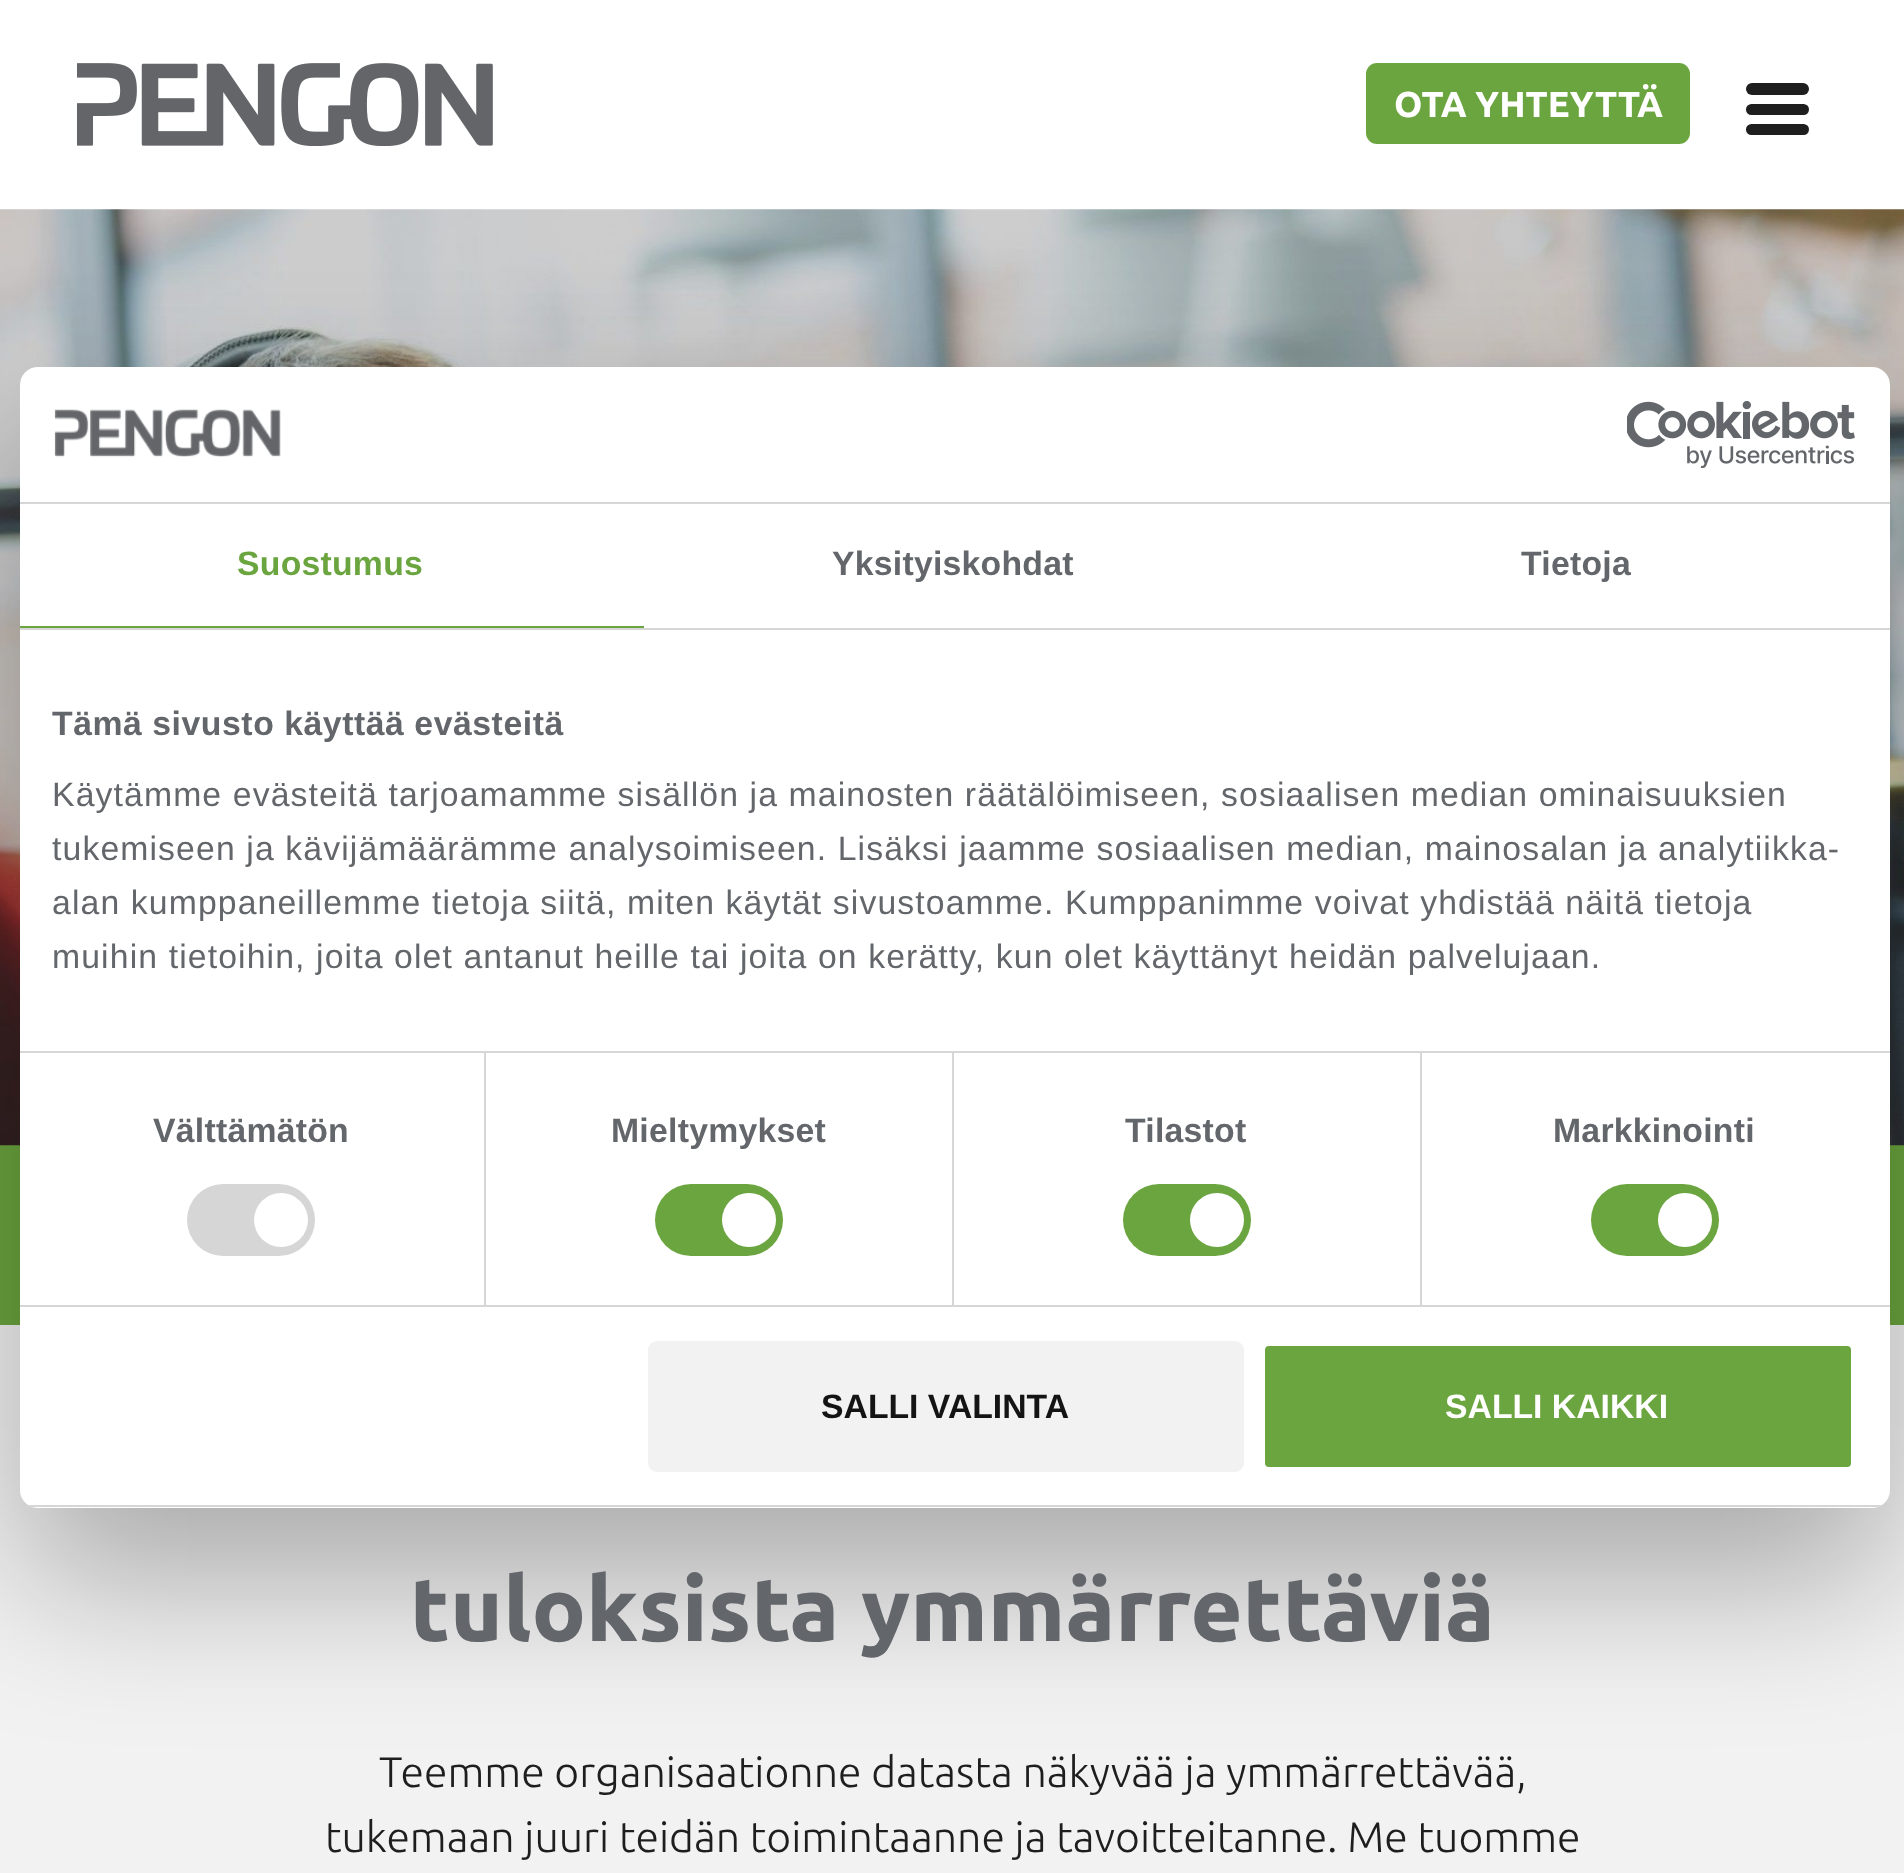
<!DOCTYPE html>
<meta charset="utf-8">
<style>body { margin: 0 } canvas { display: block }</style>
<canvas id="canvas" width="1904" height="1873"></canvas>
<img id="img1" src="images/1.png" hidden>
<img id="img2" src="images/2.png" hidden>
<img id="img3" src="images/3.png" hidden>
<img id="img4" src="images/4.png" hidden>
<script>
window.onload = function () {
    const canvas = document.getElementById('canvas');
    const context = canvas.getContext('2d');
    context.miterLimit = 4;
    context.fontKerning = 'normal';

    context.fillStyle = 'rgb(255, 255, 255)';
    context.fillRect(0, 0, 1904, 1873);
    context.drawImage(document.getElementById('img1'), 77, 63, 416, 83);
    context.fillStyle = 'rgb(30, 30, 30)';
    context.beginPath();
    context.roundRect(1746, 83, 63, 12, 6);
    context.fill();
    context.beginPath();
    context.roundRect(1746, 104, 63, 11, 5.5);
    context.fill();
    context.beginPath();
    context.roundRect(1746, 124, 63, 11, 5.5);
    context.fill();
    context.fillStyle = 'rgb(107, 165, 63)';
    context.beginPath();
    context.roundRect(1366, 63, 324, 81, 11);
    context.fill();
    context.fillRect(0, 1145, 1904, 180);
    context.drawImage(document.getElementById('img2'), 0, 209, 1904, 937);
    context.fillStyle = 'rgb(242, 242, 242)';
    context.fillRect(0, 1325, 1904, 548);
    context.fillStyle = 'rgba(0, 0, 0, 0.3)';
    context.filter = 'blur(76.5px)';
    context.beginPath();
    context.roundRect(20, 439, 1870, 1141, 18);
    context.fill();
    context.filter = 'none';
    context.fillStyle = 'rgb(255, 255, 255)';
    context.beginPath();
    context.roundRect(20, 367, 1870, 1141, 18);
    context.fill();
    context.fillStyle = 'rgb(214, 214, 214)';
    context.fillRect(20, 502, 1870, 2);
    context.drawImage(document.getElementById('img3'), 54, 409, 227, 48);
    context.drawImage(document.getElementById('img4'), 1627, 401, 228, 67);
    context.fillRect(20, 628, 1870, 2);
    context.fillStyle = 'rgb(107, 165, 63)';
    context.fillRect(20, 626, 624, 2);
    context.fillStyle = 'rgb(214, 214, 214)';
    context.fillRect(20, 1051, 1870, 2);
    context.fillRect(20, 1305, 1870, 2);
    context.fillRect(484, 1053, 2, 252);
    context.beginPath();
    context.roundRect(187, 1184, 128, 72, 36);
    context.fill();
    context.fillStyle = 'rgb(255, 255, 255)';
    context.beginPath();
    context.arc(281, 1220, 27, 0, 2 * Math.PI);
    context.fill();
    context.fillStyle = 'rgb(214, 214, 214)';
    context.fillRect(952, 1053, 2, 252);
    context.fillStyle = 'rgb(107, 165, 63)';
    context.beginPath();
    context.roundRect(655, 1184, 128, 72, 36);
    context.fill();
    context.fillStyle = 'rgb(255, 255, 255)';
    context.beginPath();
    context.arc(749, 1220, 27, 0, 2 * Math.PI);
    context.fill();
    context.fillStyle = 'rgb(214, 214, 214)';
    context.fillRect(1420, 1053, 2, 252);
    context.fillStyle = 'rgb(107, 165, 63)';
    context.beginPath();
    context.roundRect(1123, 1184, 128, 72, 36);
    context.fill();
    context.fillStyle = 'rgb(255, 255, 255)';
    context.beginPath();
    context.arc(1217, 1220, 27, 0, 2 * Math.PI);
    context.fill();
    context.fillStyle = 'rgb(107, 165, 63)';
    context.beginPath();
    context.roundRect(1591, 1184, 128, 72, 36);
    context.fill();
    context.fillStyle = 'rgb(255, 255, 255)';
    context.beginPath();
    context.arc(1685, 1220, 27, 0, 2 * Math.PI);
    context.fill();
    context.save();
    context.beginPath();
    context.roundRect(20, 367, 1870, 1141, 18);
    context.clip();
    context.fillStyle = 'rgb(214, 214, 214)';
    context.fillRect(20, 1505, 1870, 2);
    context.restore();
    context.fillStyle = 'rgb(242, 242, 242)';
    context.beginPath();
    context.roundRect(650.5, 1343.5, 591, 126, 6.5);
    context.fill();
    context.strokeStyle = 'rgb(242, 242, 242)';
    context.lineWidth = 5;
    context.stroke();
    context.fillStyle = 'rgb(107, 165, 63)';
    context.beginPath();
    context.roundRect(1262.5, 1343.5, 591, 126, 6.5);
    context.fill();
    context.strokeStyle = 'rgb(255, 255, 255)';
    context.stroke();
    context.font = 'bold 36px Ubuntu';
    context.fillStyle = 'rgb(255, 255, 255)';
    context.fillText('OTA YHTEYTTÄ', 1394, 117);
    context.font = 'bold 90px Ubuntu';
    context.fillStyle = 'rgb(99, 102, 106)';
    context.fillText('tuloksista ymmärrettäviä', 410, 1641);
    context.font = '300 42.75px Ubuntu';
    context.fillStyle = 'rgb(30, 30, 30)';
    context.fillText('Teemme organisaationne datasta näkyvää ja ymmärrettävää,', 379, 1787);
    context.fillText('tukemaan juuri teidän toimintaanne ja tavoitteitanne. Me tuomme', 325, 1852);
    context.letterSpacing = '0.25px';
    context.font = 'bold 33.75px Liberation Sans';
    context.fillStyle = 'rgb(107, 165, 63)';
    context.fillText('Suostumus', 237, 575);
    context.fillStyle = 'rgb(99, 102, 106)';
    context.fillText('Yksityiskohdat', 832, 575);
    context.fillText('Tietoja', 1521, 575);
    context.letterSpacing = '0.55px';
    context.fillText('Tämä sivusto käyttää evästeitä', 52, 735);
    context.letterSpacing = '1.12px';
    context.font = '33.75px Liberation Sans';
    context.fillText('Käytämme evästeitä tarjoamamme sisällön ja mainosten räätälöimiseen, sosiaalisen median ominaisuuksien', 52, 806);
    context.fillText('tukemiseen ja kävijämäärämme analysoimiseen. Lisäksi jaamme sosiaalisen median, mainosalan ja analytiikka-', 52, 860);
    context.fillText('alan kumppaneillemme tietoja siitä, miten käytät sivustoamme. Kumppanimme voivat yhdistää näitä tietoja', 52, 914);
    context.fillText('muihin tietoihin, joita olet antanut heille tai joita on kerätty, kun olet käyttänyt heidän palvelujaan.', 52, 968);
    context.letterSpacing = '0.25px';
    context.font = 'bold 33.75px Liberation Sans';
    context.fillText('Välttämätön', 153, 1142);
    context.fillText('Mieltymykset', 611, 1142);
    context.fillText('Tilastot', 1125, 1142);
    context.fillText('Markkinointi', 1553, 1142);
    context.letterSpacing = '0px';
    context.fillStyle = 'rgb(20, 20, 20)';
    context.fillText('SALLI VALINTA', 821, 1418);
    context.fillStyle = 'rgb(255, 255, 255)';
    context.fillText('SALLI KAIKKI', 1445, 1418);
};
</script>
